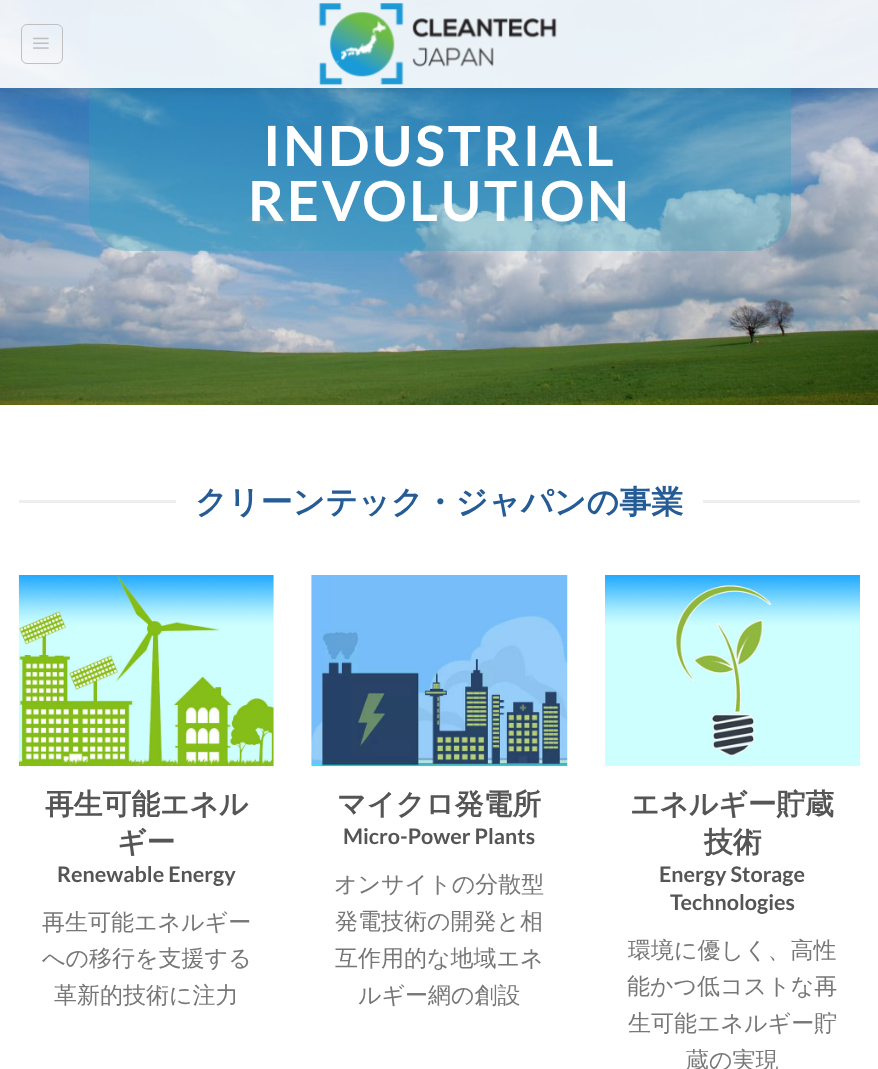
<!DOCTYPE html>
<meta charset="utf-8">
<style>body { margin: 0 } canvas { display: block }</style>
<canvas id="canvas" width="878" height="1069"></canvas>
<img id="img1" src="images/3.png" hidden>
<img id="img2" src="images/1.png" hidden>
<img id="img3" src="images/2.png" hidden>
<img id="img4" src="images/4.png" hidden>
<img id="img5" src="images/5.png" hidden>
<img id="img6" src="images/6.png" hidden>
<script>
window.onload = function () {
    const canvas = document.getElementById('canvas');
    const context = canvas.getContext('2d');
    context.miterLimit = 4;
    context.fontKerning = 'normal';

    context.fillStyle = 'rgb(255, 255, 255)';
    context.fillRect(0, 0, 878, 1069);
    context.drawImage(document.getElementById('img1'), 0, 0, 878, 405);
    context.fillStyle = 'rgba(44, 161, 188, 0.35)';
    context.beginPath();
    context.roundRect(89, -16, 702, 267, 38);
    context.fill();
    context.save();
    context.beginPath();
    context.moveTo(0, 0);
    context.lineTo(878, 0);
    context.lineTo(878, 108);
    context.lineTo(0, 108);
    context.closePath();
    context.moveTo(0, 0);
    context.lineTo(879, 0);
    context.lineTo(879, 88);
    context.lineTo(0, 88);
    context.closePath();
    context.clip('evenodd');
    context.fillStyle = 'rgba(0, 0, 0, 0.15)';
    context.filter = 'blur(6px)';
    context.beginPath();
    context.rect(1, 1, 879, 88);
    context.fill();
    context.filter = 'none';
    context.restore();
    context.fillStyle = 'rgba(255, 255, 255, 0.9)';
    context.fillRect(0, 0, 878, 88);
    context.beginPath();
    context.roundRect(21.5, 24.5, 41, 39, 5.5);
    context.strokeStyle = 'rgb(192, 192, 192)';
    context.stroke();
    context.drawImage(document.getElementById('img2'), 33, 37, 16, 12);
    context.drawImage(document.getElementById('img3'), 318, 3, 239, 83);
    context.fillStyle = 'rgb(238, 238, 238)';
    context.fillRect(19, 500, 157, 3);
    context.fillRect(703, 500, 157, 3);
    context.drawImage(document.getElementById('img4'), 18, 575, 256, 192);
    context.drawImage(document.getElementById('img5'), 311, 575, 257, 192);
    context.drawImage(document.getElementById('img6'), 605, 575, 255, 191);
    context.letterSpacing = '2.75px';
    context.font = 'bold 55.5px Lato';
    context.fillStyle = 'rgb(255, 255, 255)';
    context.fillText('INDUSTRIAL', 263, 166);
    context.fillText('REVOLUTION', 248, 221);
    context.letterSpacing = '0px';
    context.font = 'bold 32px WenQuanYi Zen Hei';
    context.fillStyle = 'rgb(38, 92, 150)';
    context.fillText('クリーンテック・ジャパンの事業', 195, 513);
    context.font = 'bold 28.75px WenQuanYi Zen Hei';
    context.fillStyle = 'rgb(85, 85, 85)';
    context.fillText('再生可能エネル', 45, 814);
    context.fillText('ギー', 117, 852);
    context.font = 'bold 21.5px Lato';
    context.fillText('Renewable Energy', 57, 882);
    context.font = '500 23px WenQuanYi Zen Hei';
    context.fillStyle = 'rgb(119, 119, 119)';
    context.fillText('再生可能エネルギー', 42, 930);
    context.fillText('への移行を支援する', 42, 966);
    context.fillText('革新的技術に注力', 54, 1003);
    context.font = 'bold 28.75px WenQuanYi Zen Hei';
    context.fillStyle = 'rgb(85, 85, 85)';
    context.fillText('マイクロ発電所', 337, 814);
    context.font = 'bold 21.5px Lato';
    context.fillText('Micro-Power Plants', 343, 844);
    context.font = '500 23px WenQuanYi Zen Hei';
    context.fillStyle = 'rgb(119, 119, 119)';
    context.fillText('オンサイトの分散型', 334, 892);
    context.fillText('発電技術の開発と相', 335, 929);
    context.fillText('互作用的な地域エネ', 335, 966);
    context.fillText('ルギー網の創設', 358, 1003);
    context.font = 'bold 28.75px WenQuanYi Zen Hei';
    context.fillStyle = 'rgb(85, 85, 85)';
    context.fillText('エネルギー貯蔵', 630, 814);
    context.fillText('技術', 704, 852);
    context.font = 'bold 21.5px Lato';
    context.fillText('Energy Storage', 659, 882);
    context.fillText('Technologies', 670, 910);
    context.font = '500 23px WenQuanYi Zen Hei';
    context.fillStyle = 'rgb(119, 119, 119)';
    context.fillText('環境に優しく、高性', 628, 958);
    context.fillText('能かつ低コストな再', 627, 994);
    context.fillText('生可能エネルギー貯', 628, 1031);
    context.fillText('蔵の実現', 686, 1068);
};
</script>
